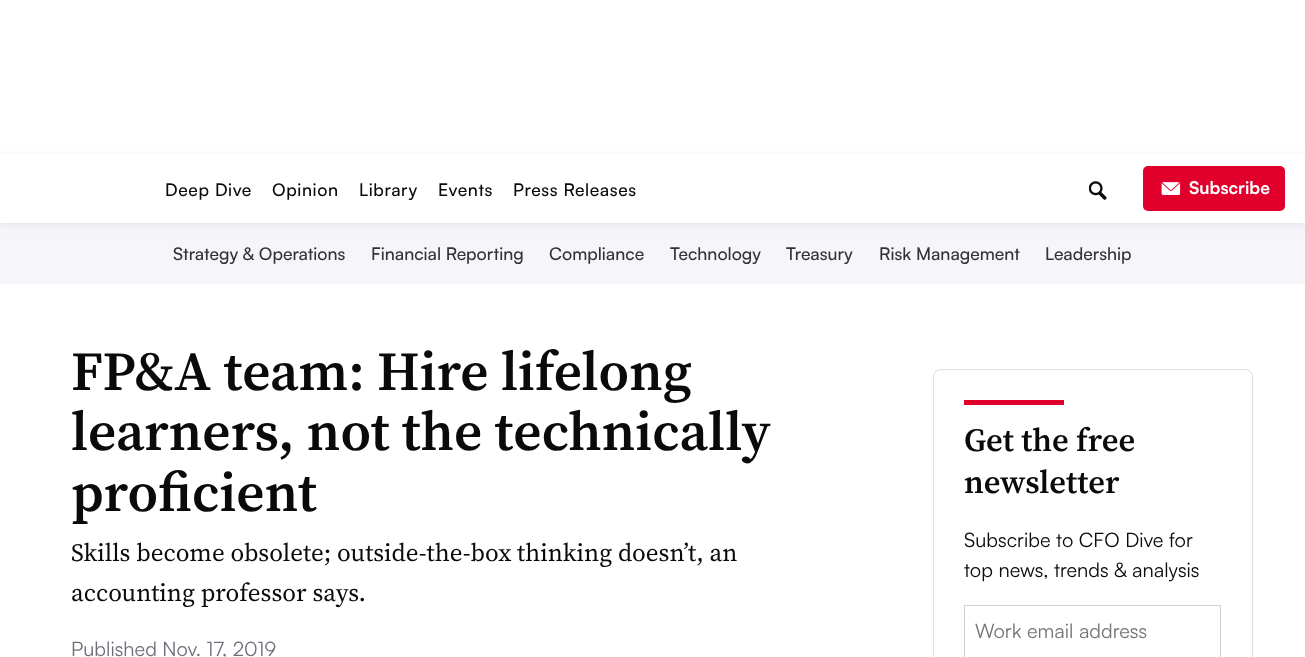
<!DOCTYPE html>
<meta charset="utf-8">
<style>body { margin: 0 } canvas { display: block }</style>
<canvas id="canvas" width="1305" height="657"></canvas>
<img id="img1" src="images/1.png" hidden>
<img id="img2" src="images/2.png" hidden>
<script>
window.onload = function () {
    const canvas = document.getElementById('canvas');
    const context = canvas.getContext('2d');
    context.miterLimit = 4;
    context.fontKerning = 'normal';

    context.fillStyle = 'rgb(255, 255, 255)';
    context.fillRect(0, 0, 1305, 657);
    context.fillStyle = 'rgb(245, 245, 250)';
    context.fillRect(0, 223, 1305, 61);
    context.fillStyle = 'rgba(120, 120, 140, 0.2)';
    context.filter = 'blur(5px)';
    context.beginPath();
    context.rect(0, 154, 1305, 69);
    context.fill();
    context.filter = 'none';
    context.fillStyle = 'rgb(253, 253, 253)';
    context.fillRect(0, 149, 1305, 4);
    context.fillStyle = 'rgb(245, 245, 250)';
    context.fillRect(0, 153, 1305, 1);
    context.fillStyle = 'rgb(255, 255, 255)';
    context.fillRect(0, 154, 1305, 69);
    context.drawImage(document.getElementById('img1'), 1089, 181, 18, 19);
    context.fillStyle = 'rgb(224, 0, 43)';
    context.beginPath();
    context.roundRect(1143, 166, 142, 45, 5);
    context.fill();
    context.drawImage(document.getElementById('img2'), 1161, 182, 20, 13);
    context.beginPath();
    context.roundRect(933.5, 369.5, 319, 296, 7.5);
    context.strokeStyle = 'rgb(221, 222, 230)';
    context.stroke();
    context.fillRect(964, 400, 100, 5);
    context.strokeStyle = 'rgb(203, 210, 217)';
    context.strokeRect(964.5, 605.5, 256, 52);
    context.letterSpacing = '0.6px';
    context.font = '500 17.5px Satoshi';
    context.fillStyle = 'rgb(10, 10, 10)';
    context.fillText('Deep Dive', 165, 196);
    context.fillText('Opinion', 272, 196);
    context.fillText('Library', 359, 196);
    context.fillText('Events', 438, 196);
    context.fillText('Press Releases', 513, 196);
    context.letterSpacing = '0px';
    context.font = 'bold 17.5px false';
    context.fillStyle = 'rgb(255, 255, 255)';
    context.fillText('Subscribe', 1189, 194);
    context.font = '500 17.5px Satoshi';
    context.fillStyle = 'rgb(50, 50, 57)';
    context.fillText('Strategy & Operations', 173, 260);
    context.fillText('Financial Reporting', 371, 260);
    context.fillText('Compliance', 549, 260);
    context.fillText('Technology', 670, 260);
    context.fillText('Treasury', 786, 260);
    context.fillText('Risk Management', 879, 260);
    context.fillText('Leadership', 1045, 260);
    context.font = '600 55px "Source Serif 4"';
    context.fillStyle = 'rgb(10, 10, 10)';
    context.fillText('FP&A team: Hire lifelong', 71, 390);
    context.fillText('learners, not the technically', 71, 450);
    context.fillText('proficient', 71, 511);
    context.font = '25px "Source Serif 4"';
    context.fillText('Skills become obsolete; outside-the-box thinking doesn’t, an', 71, 561);
    context.fillText('accounting professor says.', 71, 601);
    context.font = '20px false';
    context.fillStyle = 'rgb(110, 112, 124)';
    context.fillText('Published Nov. 17, 2019', 71, 656);
    context.font = '600 32.5px "Source Serif 4"';
    context.fillStyle = 'rgb(10, 10, 10)';
    context.fillText('Get the free', 964, 451);
    context.fillText('newsletter', 964, 493);
    context.font = '20px false';
    context.fillText('Subscribe to CFO Dive for', 964, 547);
    context.fillText('top news, trends & analysis', 964, 577);
    context.fillStyle = 'rgb(117, 117, 117)';
    context.fillText('Work email address', 975, 638);
};
</script>
